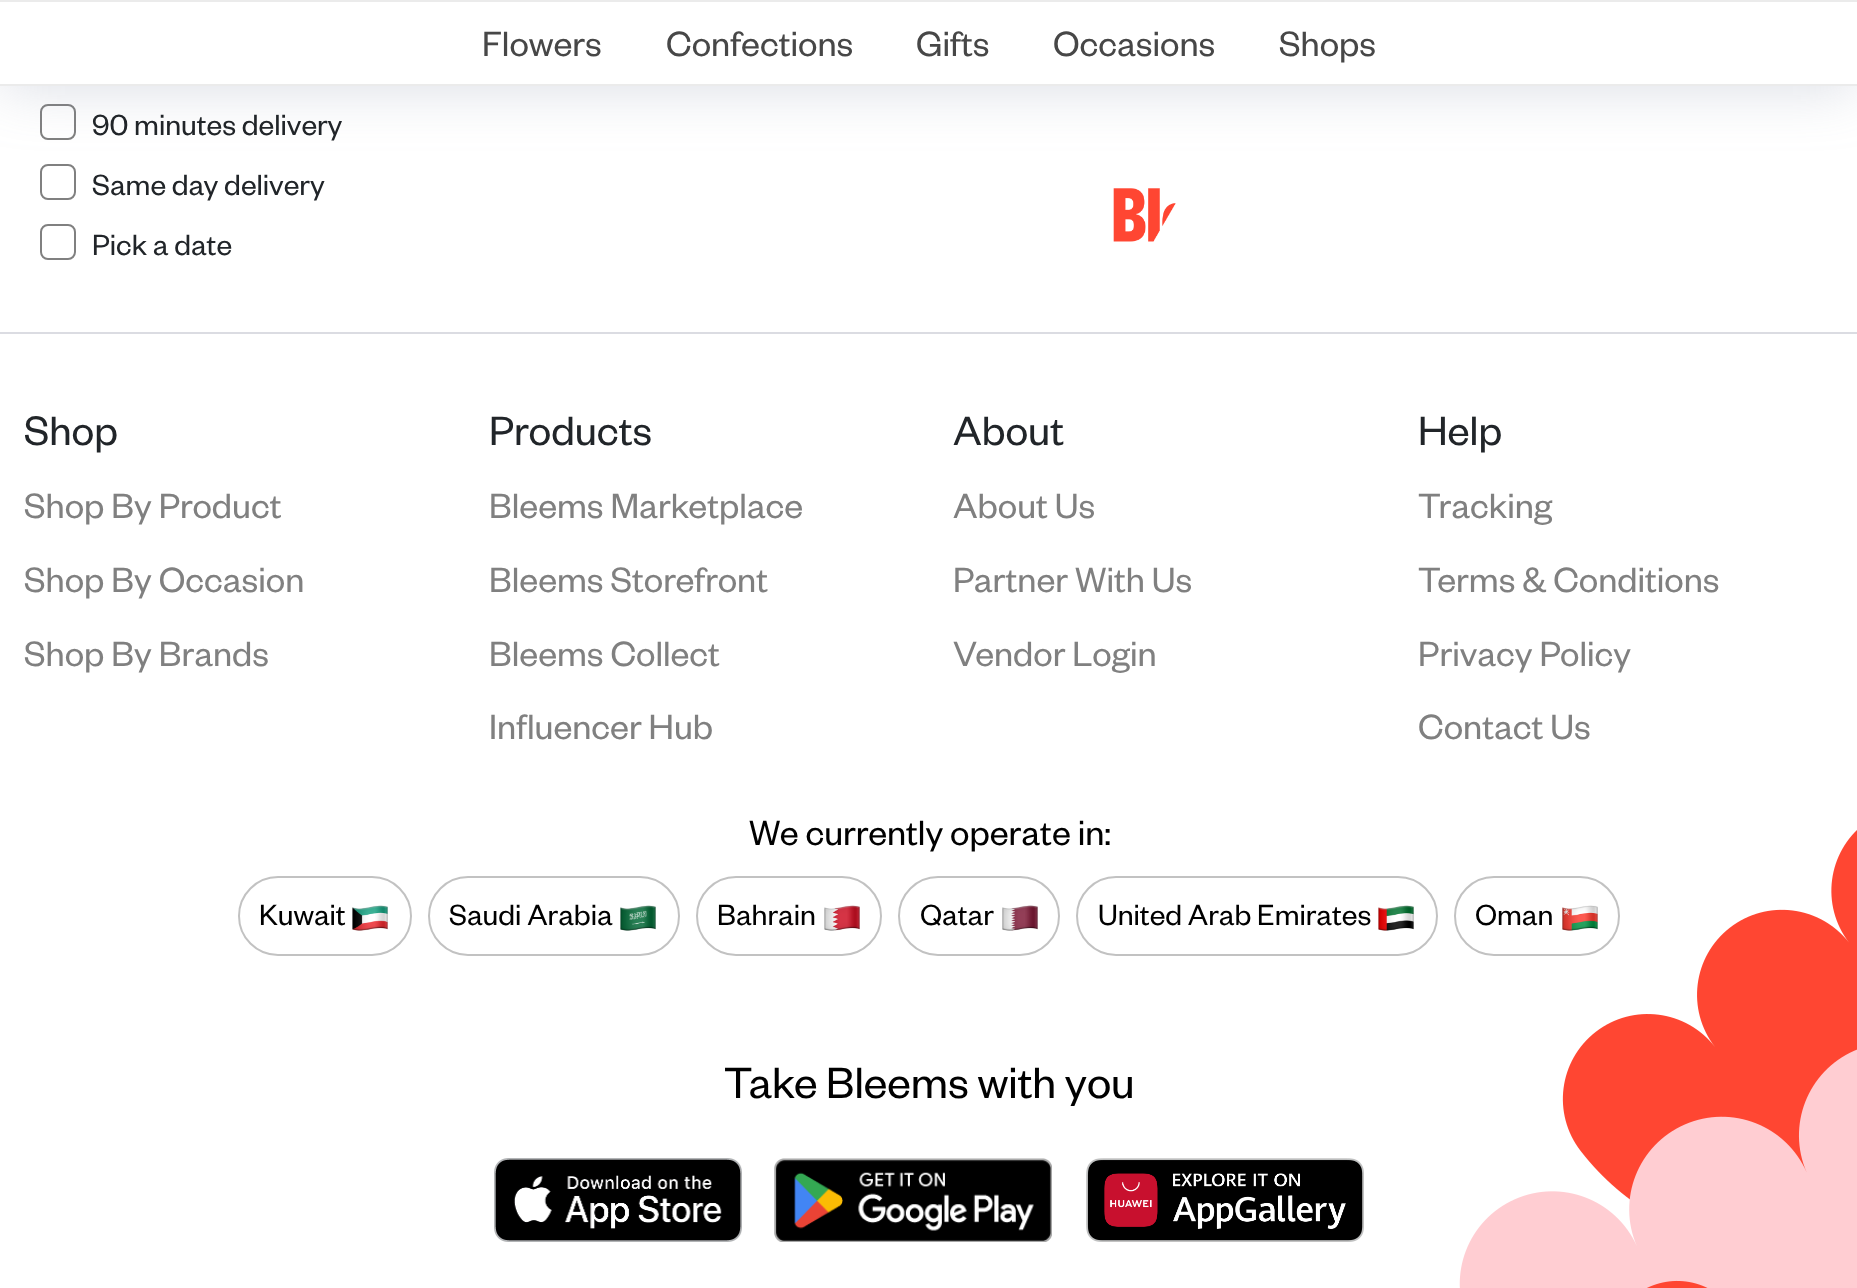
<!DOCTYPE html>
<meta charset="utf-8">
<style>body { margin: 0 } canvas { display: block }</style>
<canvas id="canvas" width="1857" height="1288"></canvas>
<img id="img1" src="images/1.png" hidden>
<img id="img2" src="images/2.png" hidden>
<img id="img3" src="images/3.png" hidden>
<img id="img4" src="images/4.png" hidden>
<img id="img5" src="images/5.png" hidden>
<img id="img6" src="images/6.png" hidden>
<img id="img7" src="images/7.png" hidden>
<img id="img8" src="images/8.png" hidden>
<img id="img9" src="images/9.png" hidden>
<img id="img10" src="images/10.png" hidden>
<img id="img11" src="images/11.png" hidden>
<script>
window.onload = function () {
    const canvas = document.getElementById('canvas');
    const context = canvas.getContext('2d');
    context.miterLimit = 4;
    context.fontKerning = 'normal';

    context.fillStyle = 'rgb(255, 255, 255)';
    context.fillRect(0, 0, 1857, 1288);
    context.beginPath();
    context.roundRect(41, 105, 34, 34, 7);
    context.strokeStyle = 'rgb(128, 128, 128)';
    context.lineWidth = 2;
    context.stroke();
    context.beginPath();
    context.roundRect(41, 165, 34, 34, 7);
    context.stroke();
    context.fillStyle = 'rgba(127, 137, 161, 0.3)';
    context.filter = 'blur(30px)';
    context.beginPath();
    context.rect(0, -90, 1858, 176);
    context.fill();
    context.filter = 'none';
    context.fillStyle = 'rgb(255, 255, 255)';
    context.fillRect(0, 2, 1857, 82);
    context.fillStyle = 'rgb(235, 235, 235)';
    context.fillRect(0, 0, 1857, 2);
    context.fillRect(0, 84, 1857, 2);
    context.beginPath();
    context.roundRect(41, 225, 34, 34, 7);
    context.stroke();
    context.drawImage(document.getElementById('img1'), 1113, 188, 63, 54);
    context.drawImage(document.getElementById('img2'), 1459, 830, 398, 458);
    context.fillStyle = 'rgb(219, 220, 226)';
    context.fillRect(0, 332, 1857, 2);
    context.beginPath();
    context.roundRect(239, 877, 172, 78, 39);
    context.strokeStyle = 'rgb(194, 194, 194)';
    context.stroke();
    context.drawImage(document.getElementById('img3'), 352, 905, 36, 26);
    context.beginPath();
    context.roundRect(429, 877, 250, 78, 39);
    context.stroke();
    context.drawImage(document.getElementById('img4'), 620, 905, 36, 26);
    context.beginPath();
    context.roundRect(697, 877, 184, 78, 39);
    context.stroke();
    context.drawImage(document.getElementById('img5'), 824, 905, 36, 26);
    context.beginPath();
    context.roundRect(899, 877, 160, 78, 39);
    context.stroke();
    context.drawImage(document.getElementById('img6'), 1002, 905, 36, 26);
    context.beginPath();
    context.roundRect(1077, 877, 360, 78, 39);
    context.stroke();
    context.drawImage(document.getElementById('img7'), 1378, 905, 36, 26);
    context.beginPath();
    context.roundRect(1455, 877, 164, 78, 39);
    context.stroke();
    context.drawImage(document.getElementById('img8'), 1562, 905, 36, 26);
    context.drawImage(document.getElementById('img9'), 494, 1158, 248, 84);
    context.drawImage(document.getElementById('img10'), 774, 1158, 278, 84);
    context.drawImage(document.getElementById('img11'), 1086, 1158, 278, 84);
    context.font = '38.5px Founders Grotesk';
    context.fillStyle = 'rgb(71, 71, 71)';
    context.fillText('Flowers', 482, 56);
    context.fillText('Confections', 666, 56);
    context.fillText('Gifts', 916, 56);
    context.fillText('Occasions', 1053, 56);
    context.fillText('Shops', 1279, 56);
    context.font = '32px Founders Grotesk';
    context.fillStyle = 'rgb(33, 37, 41)';
    context.fillText('90 minutes delivery', 92, 135);
    context.fillText('Same day delivery', 92, 195);
    context.fillText('Pick a date', 92, 255);
    context.font = '45px Founders Grotesk';
    context.fillText('Shop', 24, 445);
    context.font = '38.5px Founders Grotesk';
    context.fillStyle = 'rgb(128, 128, 128)';
    context.fillText('Shop By Product', 24, 518);
    context.fillText('Shop By Occasion', 24, 592);
    context.fillText('Shop By Brands', 24, 666);
    context.font = '45px Founders Grotesk';
    context.fillStyle = 'rgb(33, 37, 41)';
    context.fillText('Products', 489, 445);
    context.font = '38.5px Founders Grotesk';
    context.fillStyle = 'rgb(128, 128, 128)';
    context.fillText('Bleems Marketplace', 489, 518);
    context.fillText('Bleems Storefront', 489, 592);
    context.fillText('Bleems Collect', 489, 666);
    context.fillText('Influencer Hub', 489, 739);
    context.font = '45px Founders Grotesk';
    context.fillStyle = 'rgb(33, 37, 41)';
    context.fillText('About', 953, 445);
    context.font = '38.5px Founders Grotesk';
    context.fillStyle = 'rgb(128, 128, 128)';
    context.fillText('About Us', 953, 518);
    context.fillText('Partner With Us', 953, 592);
    context.fillText('Vendor Login', 953, 666);
    context.font = '45px Founders Grotesk';
    context.fillStyle = 'rgb(33, 37, 41)';
    context.fillText('Help', 1418, 445);
    context.font = '38.5px Founders Grotesk';
    context.fillStyle = 'rgb(128, 128, 128)';
    context.fillText('Tracking', 1418, 518);
    context.fillText('Terms & Conditions', 1418, 592);
    context.fillText('Privacy Policy', 1418, 666);
    context.fillText('Contact Us', 1418, 739);
    context.fillStyle = 'rgb(0, 0, 0)';
    context.fillText('We currently operate in:', 749, 845);
    context.font = '32px Founders Grotesk';
    context.fillText('Kuwait', 259, 925);
    context.fillText('Saudi Arabia', 449, 925);
    context.fillText('Bahrain', 717, 925);
    context.fillText('Qatar', 920, 925);
    context.fillText('United Arab Emirates', 1098, 925);
    context.fillText('Oman', 1475, 925);
    context.font = '48px Founders Grotesk';
    context.fillText('Take Bleems with you', 724, 1098);
};
</script>
